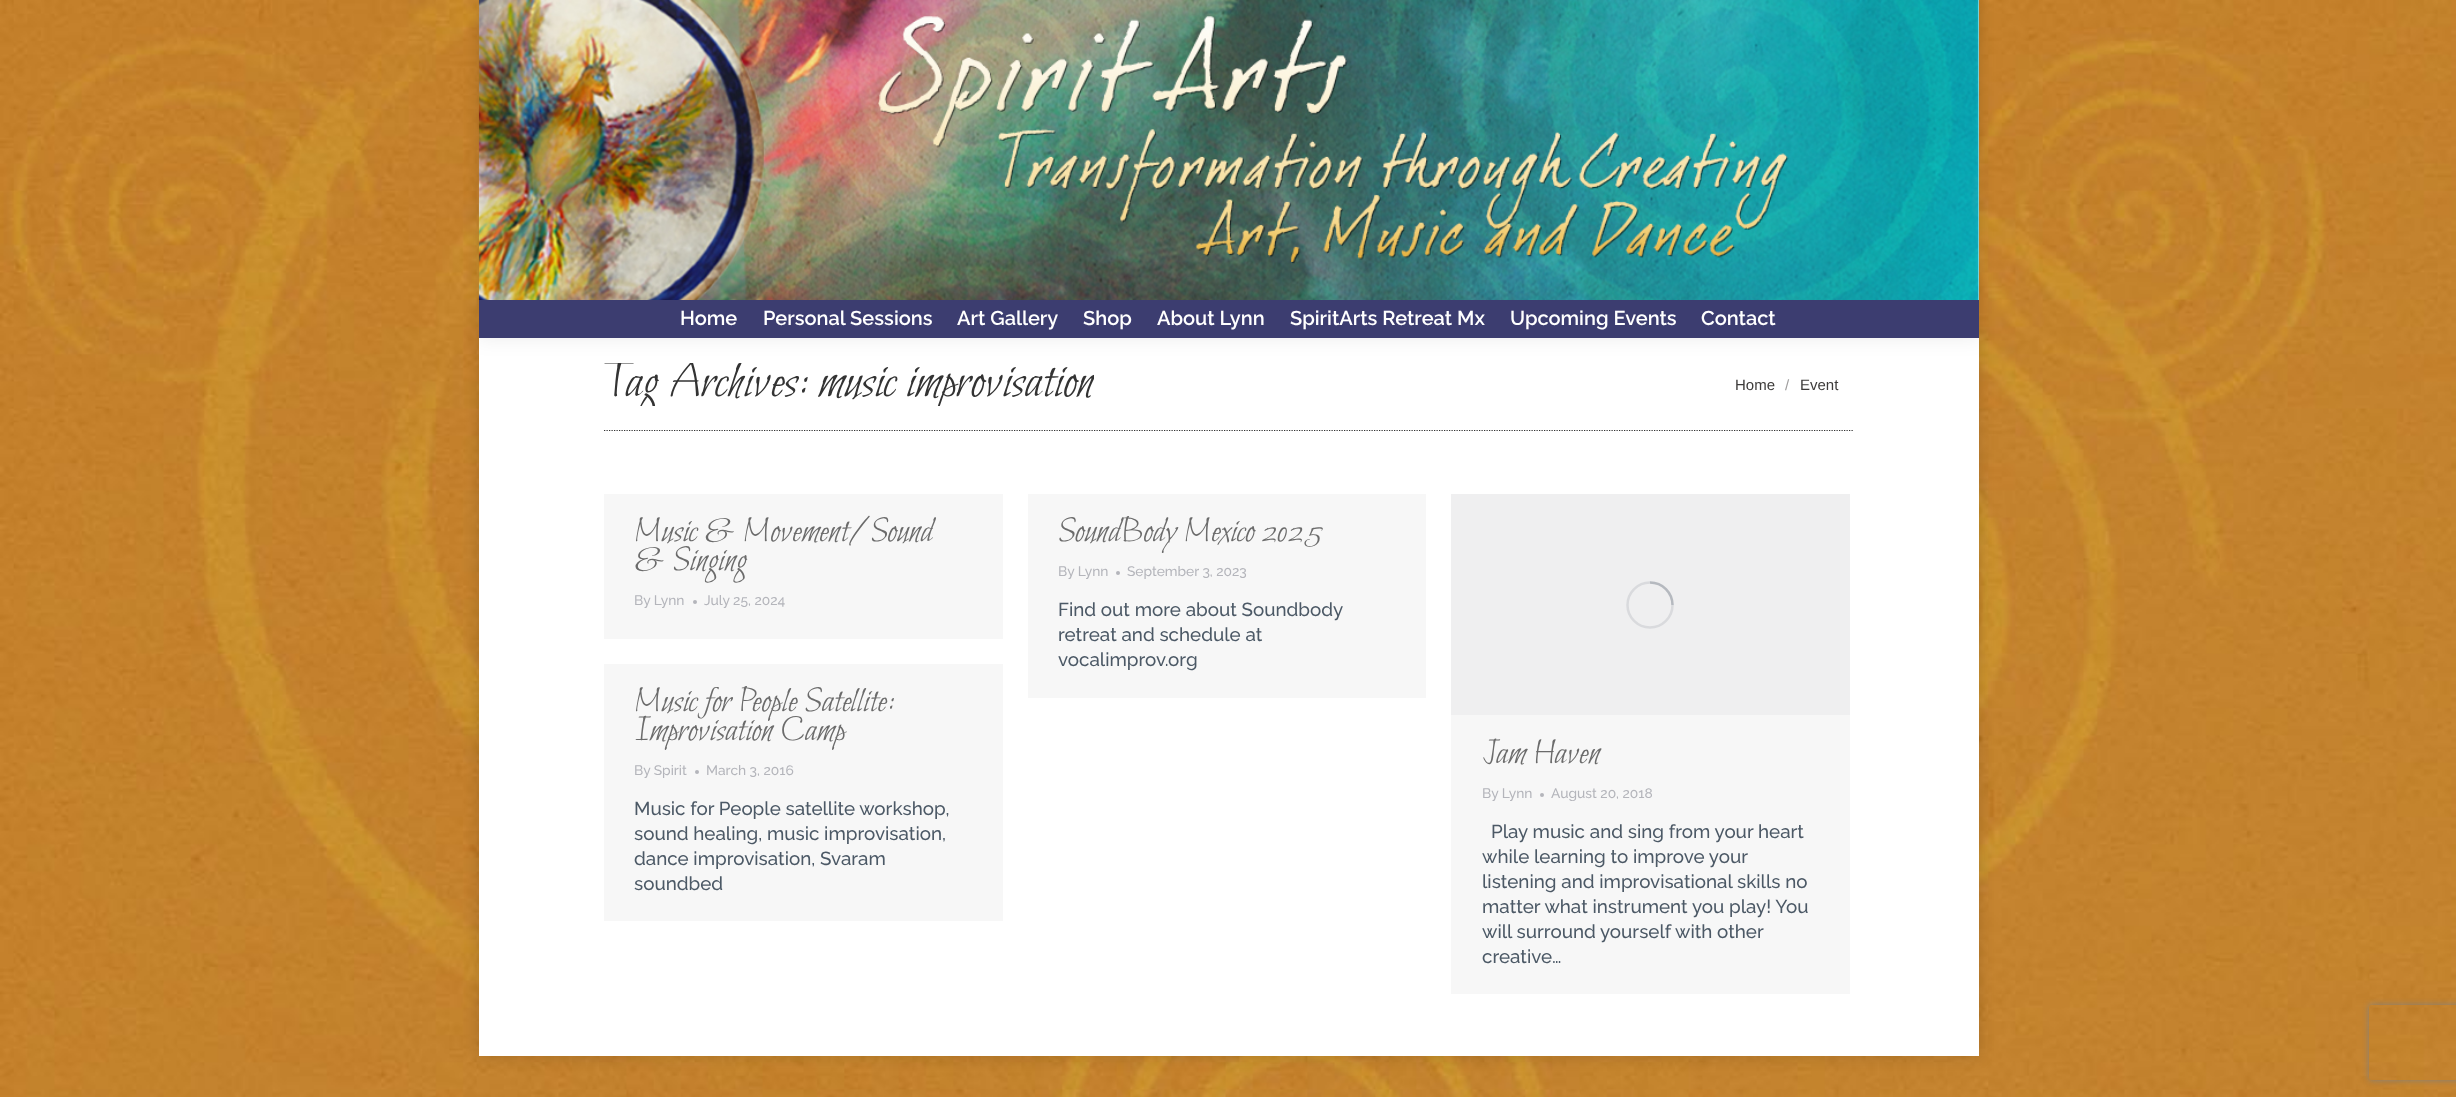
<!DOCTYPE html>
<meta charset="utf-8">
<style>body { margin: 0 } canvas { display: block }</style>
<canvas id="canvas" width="2456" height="1097"></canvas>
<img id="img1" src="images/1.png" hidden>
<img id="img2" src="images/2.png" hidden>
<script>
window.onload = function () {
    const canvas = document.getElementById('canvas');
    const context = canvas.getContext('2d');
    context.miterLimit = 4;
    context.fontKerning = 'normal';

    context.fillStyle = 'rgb(255, 255, 255)';
    context.fillRect(0, 0, 2456, 1097);
    context.drawImage(document.getElementById('img1'), 0, 0, 2456, 1097);
    context.fillStyle = 'rgba(0, 0, 0, 0.15)';
    context.filter = 'blur(7.5px)';
    context.beginPath();
    context.rect(479, 0, 1500, 1056);
    context.fill();
    context.filter = 'none';
    context.fillStyle = 'rgb(255, 255, 255)';
    context.fillRect(479, 338, 1500, 718);
    context.save();
    context.beginPath();
    context.rect(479, 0, 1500, 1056);
    context.clip();
    context.fillStyle = 'rgba(0, 0, 0, 0.07)';
    context.filter = 'blur(9.5px)';
    context.beginPath();
    context.rect(478, -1, 1502, 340);
    context.fill();
    context.filter = 'none';
    context.restore();
    context.fillRect(1978, 0, 1, 300);
    context.drawImage(document.getElementById('img2'), 478, 0, 1501, 300);
    context.fillStyle = 'rgb(60, 61, 112)';
    context.fillRect(479, 300, 1500, 38);
    context.beginPath();
    context.moveTo(604, 430.5);
    context.lineTo(1854, 430.5);
    context.strokeStyle = 'rgb(51, 51, 51)';
    context.lineWidth = 1.2;
    context.setLineDash([1.25, 1.25]);
    context.stroke();
    context.fillStyle = 'rgb(247, 247, 247)';
    context.fillRect(604, 494, 399, 145);
    context.fillStyle = 'rgb(180, 181, 187)';
    context.beginPath();
    context.arc(695, 602, 2, 0, 2 * Math.PI);
    context.fill();
    context.fillStyle = 'rgb(247, 247, 247)';
    context.fillRect(1028, 494, 398, 204);
    context.fillStyle = 'rgb(180, 181, 187)';
    context.beginPath();
    context.arc(1118, 573, 2, 0, 2 * Math.PI);
    context.fill();
    context.fillStyle = 'rgb(247, 247, 247)';
    context.fillRect(604, 664, 399, 257);
    context.fillStyle = 'rgb(180, 181, 187)';
    context.beginPath();
    context.arc(697, 772, 2, 0, 2 * Math.PI);
    context.fill();
    context.fillStyle = 'rgb(247, 247, 247)';
    context.fillRect(1451, 715, 399, 279);
    context.fillStyle = 'rgb(239, 239, 240)';
    context.fillRect(1451, 494, 399, 221);
    context.beginPath();
    context.arc(1650, 605, 22.5, 0, 2 * Math.PI);
    context.strokeStyle = 'rgb(217, 218, 221)';
    context.lineWidth = 2.5;
    context.setLineDash([]);
    context.stroke();
    context.beginPath();
    context.moveTo(1672.5, 605);
    context.bezierCurveTo(1672.5, 592.5, 1662.5, 582.5, 1650, 582.5);
    context.strokeStyle = 'rgba(76, 89, 102, 0.25)';
    context.stroke();
    context.fillStyle = 'rgb(180, 181, 187)';
    context.beginPath();
    context.arc(1542, 795, 2, 0, 2 * Math.PI);
    context.fill();
    context.save();
    context.beginPath();
    context.moveTo(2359, 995);
    context.lineTo(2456, 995);
    context.lineTo(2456, 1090);
    context.lineTo(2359, 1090);
    context.closePath();
    context.moveTo(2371.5, 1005);
    context.lineTo(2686.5, 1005);
    context.bezierCurveTo(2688, 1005, 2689, 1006, 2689, 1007.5);
    context.lineTo(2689, 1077.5);
    context.bezierCurveTo(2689, 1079, 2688, 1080, 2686.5, 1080);
    context.lineTo(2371.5, 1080);
    context.bezierCurveTo(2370, 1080, 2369, 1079, 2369, 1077.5);
    context.lineTo(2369, 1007.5);
    context.bezierCurveTo(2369, 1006, 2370, 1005, 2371.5, 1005);
    context.closePath();
    context.clip('evenodd');
    context.fillStyle = 'rgb(128, 128, 128)';
    context.filter = 'blur(3px)';
    context.beginPath();
    context.roundRect(2369, 1005, 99, 75, 2.5);
    context.fill();
    context.filter = 'none';
    context.restore();
    context.font = '600 20px Raleway';
    context.fillStyle = 'rgb(255, 255, 255)';
    context.fillText('Home', 680, 325);
    context.fillText('Personal Sessions', 763, 325);
    context.fillText('Art Gallery', 957, 325);
    context.fillText('Shop', 1083, 325);
    context.fillText('About Lynn', 1157, 325);
    context.fillText('SpiritArts Retreat Mx', 1290, 325);
    context.fillText('Upcoming Events', 1510, 325);
    context.fillText('Contact', 1701, 325);
    context.save();
    context.beginPath();
    context.rect(604, 363, 490, 43);
    context.clip();
    context.font = '52.5px Bilbo';
    context.fillStyle = 'rgb(51, 51, 51)';
    context.fillText('Tag Archives: music improvisation', 603, 396);
    context.restore();
    context.font = '15px Liberation Sans';
    context.fillStyle = 'rgb(61, 59, 58)';
    context.fillText('Home', 1735, 390);
    context.fillStyle = 'rgb(158, 157, 157)';
    context.fillText('/', 1785, 390);
    context.fillStyle = 'rgb(61, 59, 58)';
    context.fillText('Event', 1800, 390);
    context.font = '36.25px Bilbo';
    context.fillStyle = 'rgb(107, 107, 107)';
    context.fillText('Music & Movement/Sound', 634, 541);
    context.fillText('& Singing', 634, 570);
    context.font = '500 13.75px Raleway';
    context.fillStyle = 'rgb(180, 181, 187)';
    context.fillText('By Lynn', 634, 605);
    context.fillText('July 25, 2024', 704, 605);
    context.font = '36.25px Bilbo';
    context.fillStyle = 'rgb(107, 107, 107)';
    context.fillText('SoundBody Mexico 2025', 1058, 541);
    context.font = '500 13.75px Raleway';
    context.fillStyle = 'rgb(180, 181, 187)';
    context.fillText('By Lynn', 1058, 576);
    context.fillText('September 3, 2023', 1127, 576);
    context.font = '500 18.75px Raleway';
    context.fillStyle = 'rgb(76, 89, 102)';
    context.fillText('Find out more about Soundbody', 1058, 616);
    context.fillText('retreat and schedule at', 1058, 641);
    context.fillText('vocalimprov.org', 1058, 666);
    context.font = '36.25px Bilbo';
    context.fillStyle = 'rgb(107, 107, 107)';
    context.fillText('Music for People Satellite:', 634, 711);
    context.fillText('Improvisation Camp', 634, 740);
    context.font = '500 13.75px Raleway';
    context.fillStyle = 'rgb(180, 181, 187)';
    context.fillText('By Spirit', 634, 775);
    context.fillText('March 3, 2016', 706, 775);
    context.font = '500 18.75px Raleway';
    context.fillStyle = 'rgb(76, 89, 102)';
    context.fillText('Music for People satellite workshop,', 634, 815);
    context.fillText('sound healing, music improvisation,', 634, 840);
    context.fillText('dance improvisation, Svaram', 634, 865);
    context.fillText('soundbed', 634, 890);
    context.font = '36.25px Bilbo';
    context.fillStyle = 'rgb(107, 107, 107)';
    context.fillText('Jam Haven', 1482, 763);
    context.font = '500 13.75px Raleway';
    context.fillStyle = 'rgb(180, 181, 187)';
    context.fillText('By Lynn', 1482, 798);
    context.fillText('August 20, 2018', 1551, 798);
    context.font = '500 18.75px Raleway';
    context.fillStyle = 'rgb(76, 89, 102)';
    context.fillText('Play music and sing from your heart', 1491, 838);
    context.fillText('while learning to improve your', 1482, 863);
    context.fillText('listening and improvisational skills no', 1482, 888);
    context.fillText('matter what instrument you play! You', 1482, 913);
    context.fillText('will surround yourself with other', 1482, 938);
    context.fillText('creative…', 1482, 963);
};
</script>
